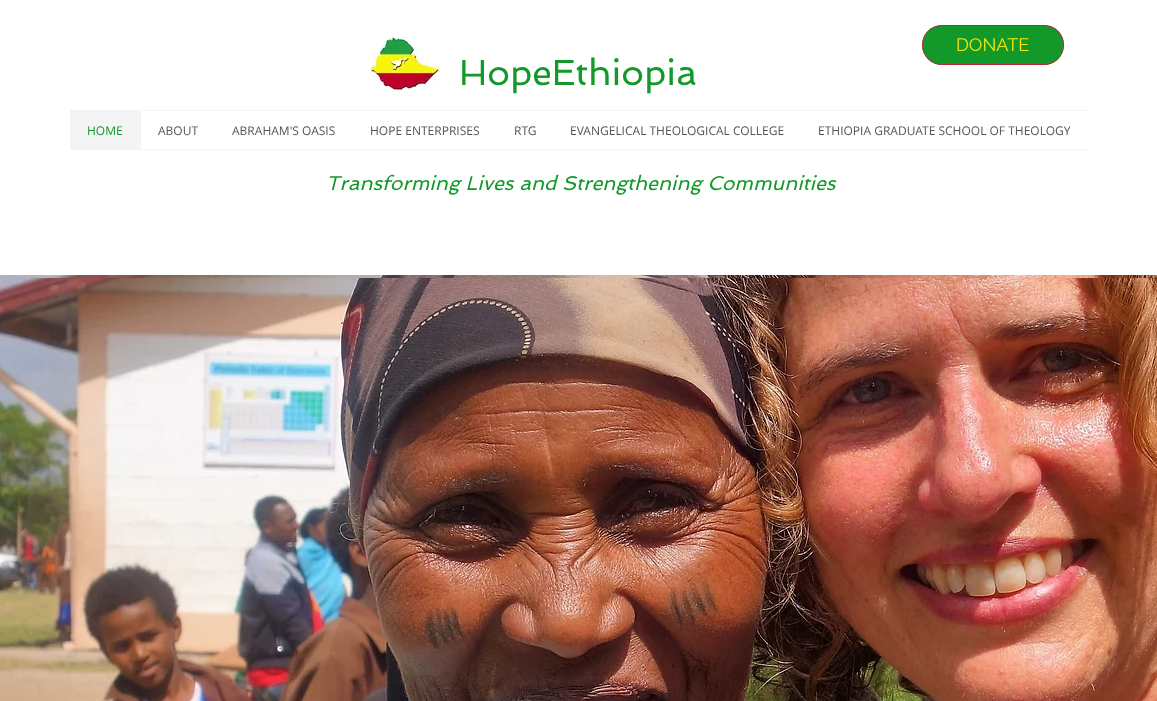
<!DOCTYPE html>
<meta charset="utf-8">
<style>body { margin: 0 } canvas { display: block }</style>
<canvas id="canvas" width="1157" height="701"></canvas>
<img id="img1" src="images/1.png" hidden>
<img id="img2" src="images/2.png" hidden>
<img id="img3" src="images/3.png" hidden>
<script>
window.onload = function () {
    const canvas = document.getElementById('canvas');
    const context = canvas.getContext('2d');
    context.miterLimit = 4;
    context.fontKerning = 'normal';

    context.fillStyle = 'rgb(255, 255, 255)';
    context.fillRect(0, 0, 1157, 701);
    context.drawImage(document.getElementById('img1'), 370, 37, 70, 53);
    context.fillStyle = 'rgb(18, 153, 41)';
    context.beginPath();
    context.roundRect(922, 25, 142, 40, 20);
    context.fill();
    context.beginPath();
    context.roundRect(922.5, 25.5, 141, 39, 19.5);
    context.strokeStyle = 'rgba(214, 16, 67, 0.85)';
    context.stroke();
    context.fillStyle = 'rgb(244, 244, 244)';
    context.fillRect(70, 110, 1018, 1);
    context.fillRect(70, 149, 1018, 1);
    context.fillRect(70, 111, 71, 38);
    context.drawImage(document.getElementById('img2'), 0, 275, 1157, 3);
    context.drawImage(document.getElementById('img3'), 0, 278, 1157, 423);
    context.font = '18px Raleway';
    context.fillStyle = 'rgb(242, 231, 22)';
    context.fillText('DONATE', 956, 51);
    context.font = '36px Spinnaker';
    context.fillStyle = 'rgb(18, 153, 41)';
    context.fillText('HopeEthiopia', 459, 85);
    context.font = '12px Open Sans';
    context.fillText('HOME', 87, 135);
    context.fillStyle = 'rgb(84, 84, 84)';
    context.fillText('ABOUT', 158, 135);
    context.fillText('ABRAHAM\'S OASIS', 232, 135);
    context.fillText('HOPE ENTERPRISES', 370, 135);
    context.fillText('RTG', 514, 135);
    context.fillText('EVANGELICAL THEOLOGICAL COLLEGE', 570, 135);
    context.fillText('ETHIOPIA GRADUATE SCHOOL OF THEOLOGY', 818, 135);
    context.font = 'italic 20px Spinnaker';
    context.fillStyle = 'rgb(18, 153, 41)';
    context.fillText('Transforming Lives and Strengthening Communities', 326, 190);
};
</script>
